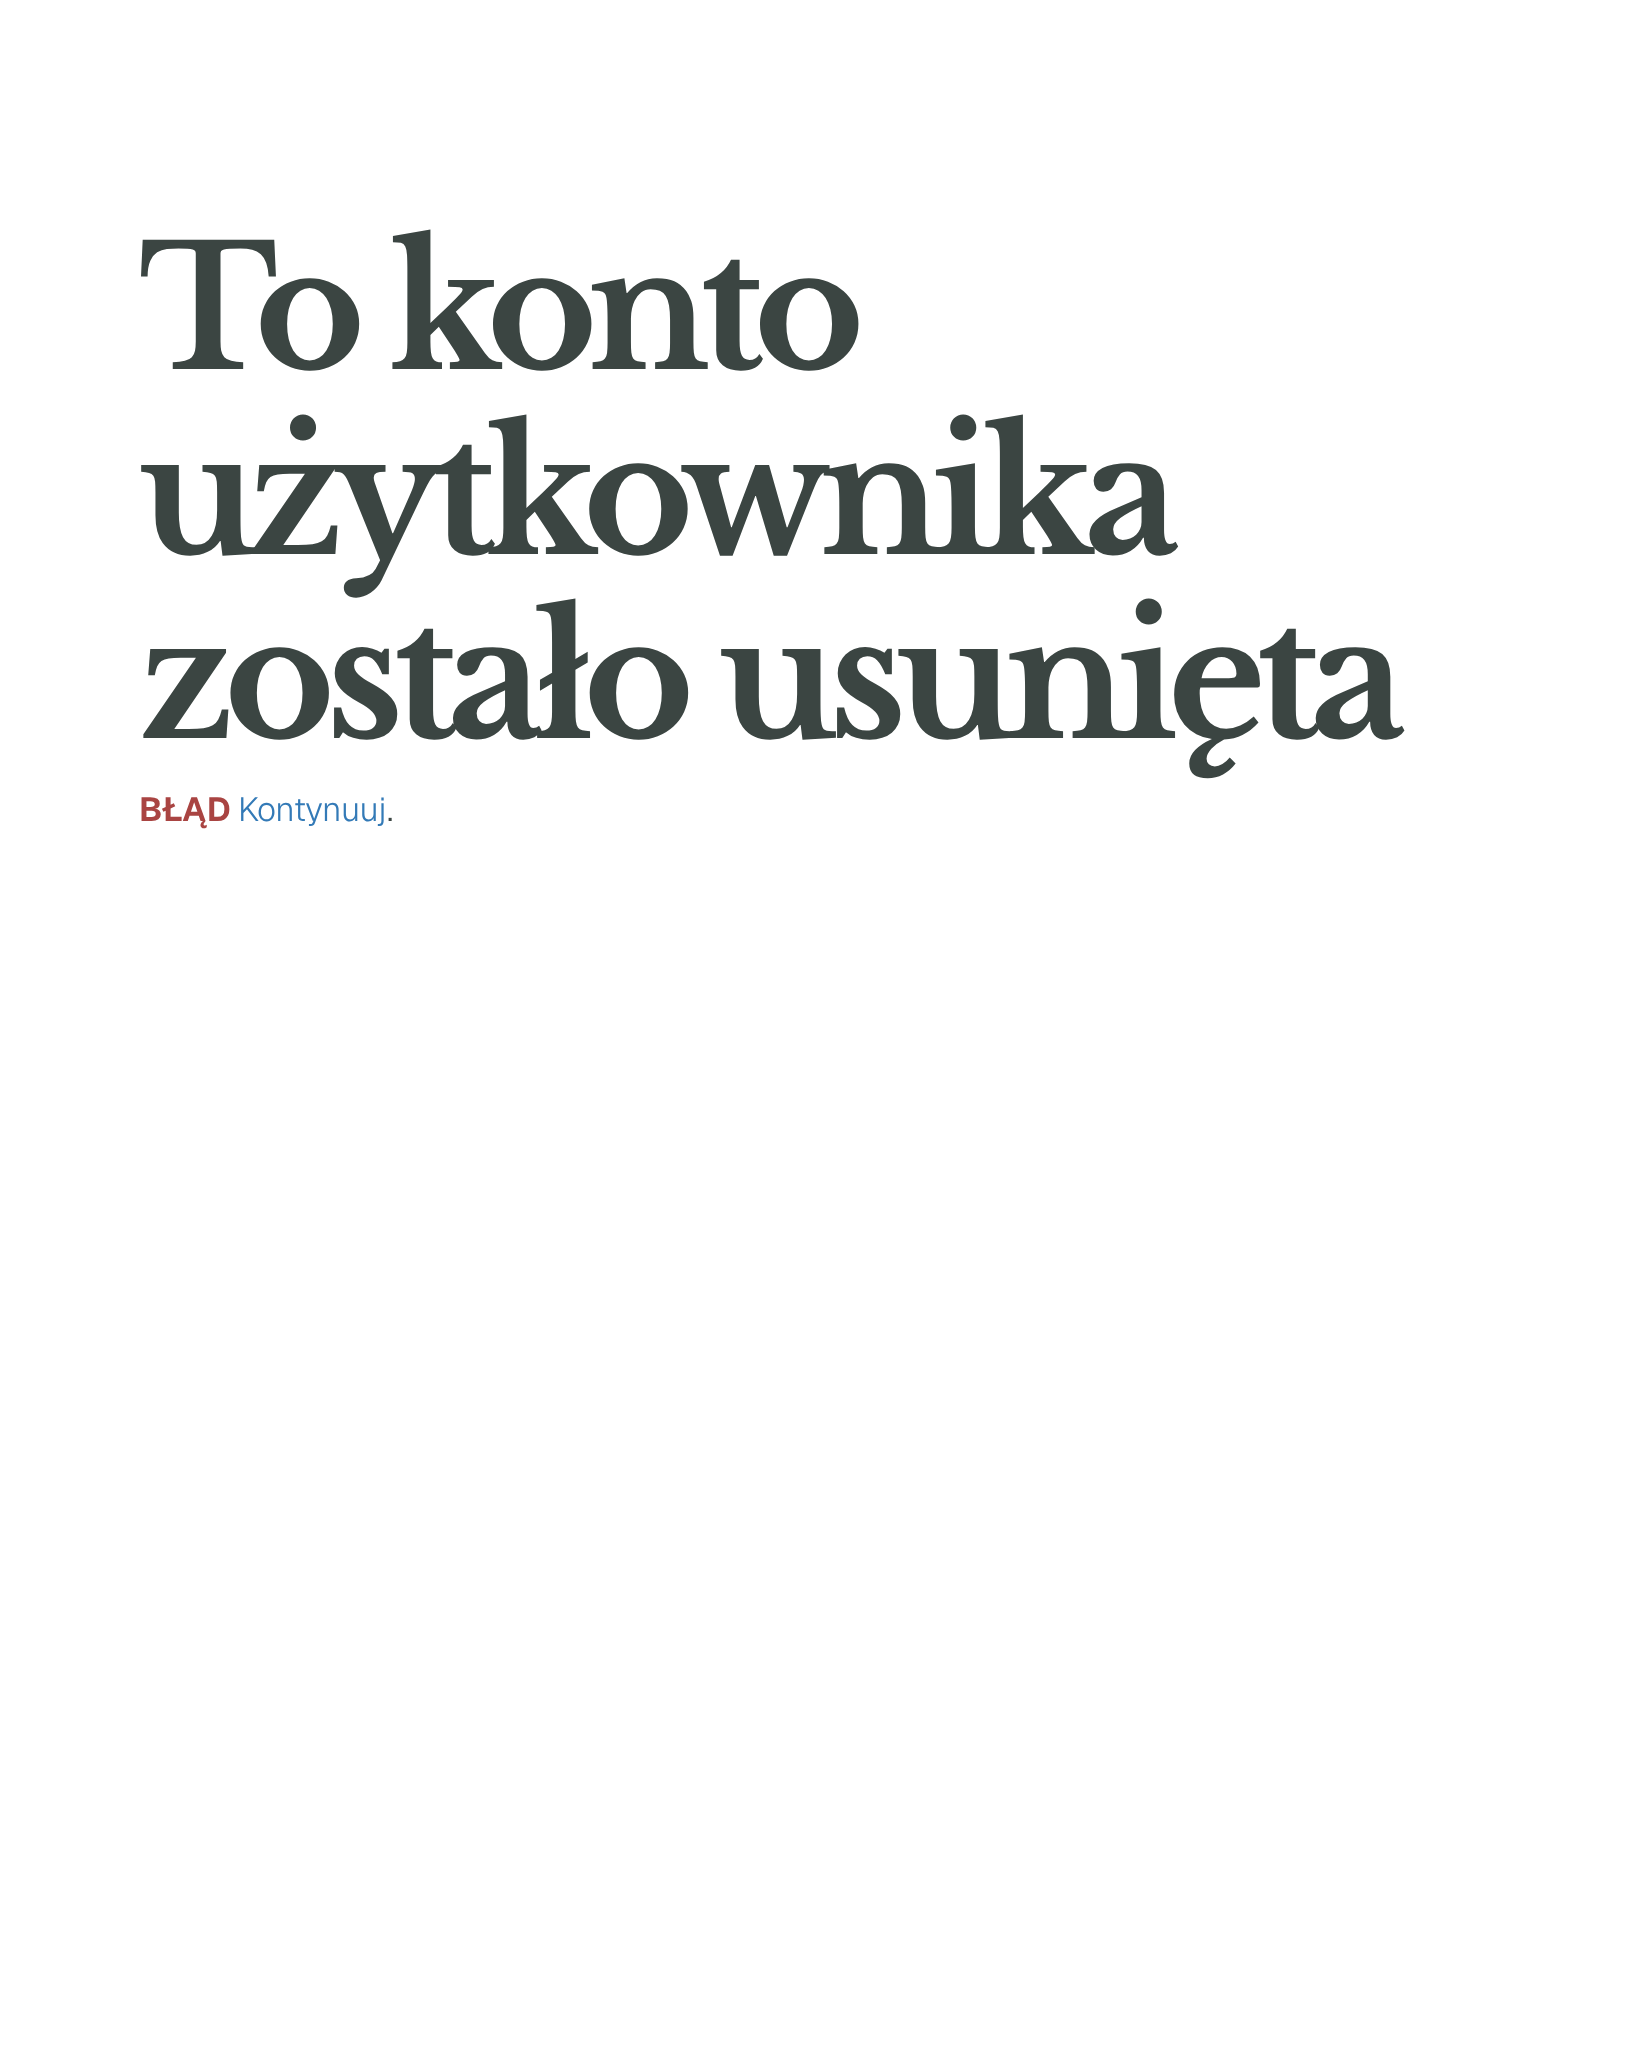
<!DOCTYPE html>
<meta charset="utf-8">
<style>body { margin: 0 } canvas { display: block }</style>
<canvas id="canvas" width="1642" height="2061"></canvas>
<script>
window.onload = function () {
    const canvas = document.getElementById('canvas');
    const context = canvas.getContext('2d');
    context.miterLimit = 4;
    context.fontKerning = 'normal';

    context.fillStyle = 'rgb(255, 255, 255)';
    context.fillRect(0, 0, 1642, 2061);
    context.letterSpacing = '-10.1px';
    context.font = 'bold 168px Libre Baskerville';
    context.fillStyle = 'rgb(59, 69, 66)';
    context.fillText('To konto', 139, 369);
    context.fillText('użytkownika', 139, 554);
    context.fillText('zostało usunięta', 139, 738);
    context.letterSpacing = '-0.75px';
    context.font = 'bold 33.5px Geist';
    context.fillStyle = 'rgb(169, 68, 66)';
    context.fillText('BŁĄD', 139, 821);
    context.font = '300 33.5px Geist';
    context.fillStyle = 'rgb(51, 122, 183)';
    context.fillText('Kontynuuj', 238, 821);
    context.fillStyle = 'rgb(59, 69, 66)';
    context.fillText('.', 387, 821);
};
</script>
